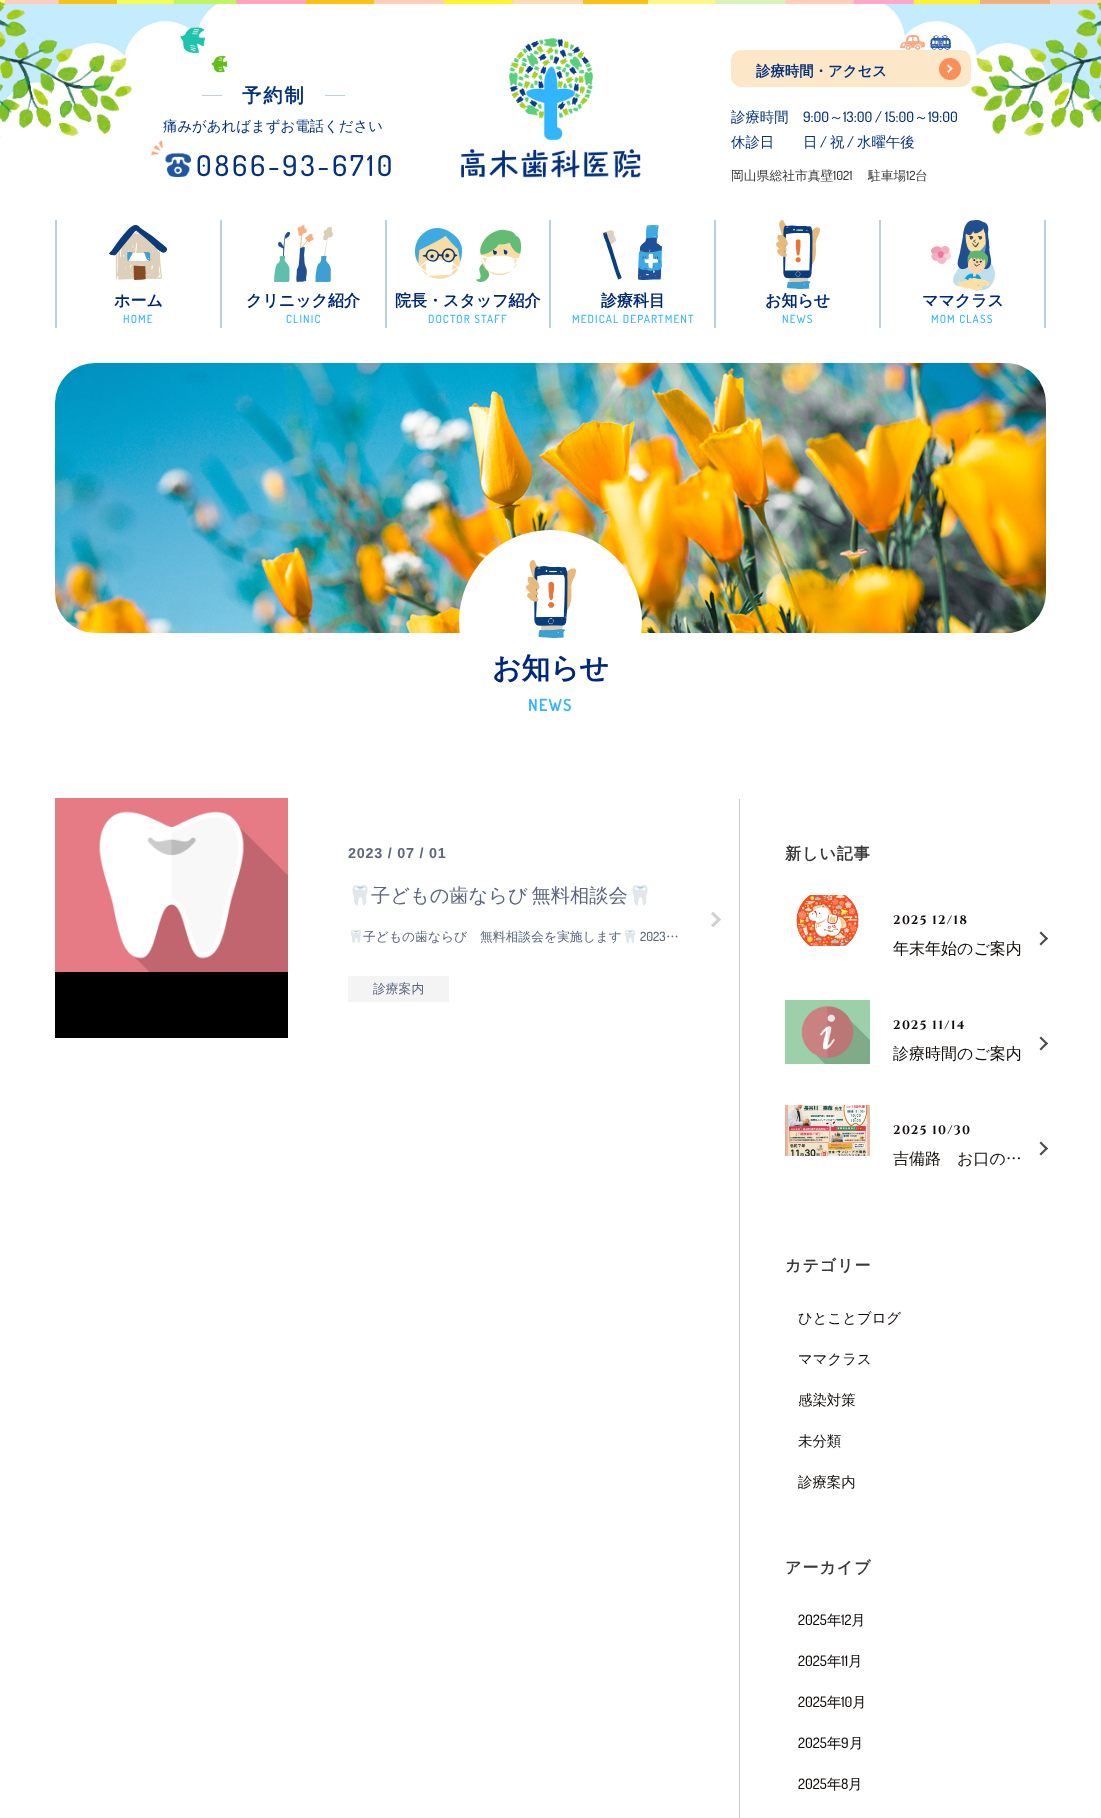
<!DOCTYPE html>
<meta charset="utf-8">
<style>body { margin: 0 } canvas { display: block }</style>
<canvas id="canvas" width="1101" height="1818"></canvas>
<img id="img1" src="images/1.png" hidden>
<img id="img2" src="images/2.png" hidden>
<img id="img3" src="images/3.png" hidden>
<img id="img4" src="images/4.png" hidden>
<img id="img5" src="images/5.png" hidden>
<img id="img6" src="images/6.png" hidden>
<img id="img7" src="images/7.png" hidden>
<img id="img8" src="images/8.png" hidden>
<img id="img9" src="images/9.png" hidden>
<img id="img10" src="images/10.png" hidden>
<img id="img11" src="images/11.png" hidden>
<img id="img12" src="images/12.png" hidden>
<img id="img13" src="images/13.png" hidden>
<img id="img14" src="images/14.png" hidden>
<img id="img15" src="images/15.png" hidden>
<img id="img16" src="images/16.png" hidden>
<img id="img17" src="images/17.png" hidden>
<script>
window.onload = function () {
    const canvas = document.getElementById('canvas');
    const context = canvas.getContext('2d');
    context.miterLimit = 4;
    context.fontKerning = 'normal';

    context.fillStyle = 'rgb(255, 255, 255)';
    context.fillRect(0, 0, 1101, 1818);
    context.drawImage(document.getElementById('img1'), 0, 0, 1101, 182);
    context.drawImage(document.getElementById('img2'), 0, 1, 1101, 135);
    context.fillStyle = 'rgb(186, 210, 223)';
    context.fillRect(202, 95, 20, 1);
    context.fillRect(325, 95, 20, 1);
    context.drawImage(document.getElementById('img3'), 151, 140, 40, 37);
    context.drawImage(document.getElementById('img4'), 461, 38, 180, 140);
    context.drawImage(document.getElementById('img5'), 900, 35, 51, 15);
    context.fillStyle = 'rgb(252, 231, 201)';
    context.beginPath();
    context.roundRect(731, 50, 240, 37, 10);
    context.fill();
    context.fillStyle = 'rgb(252, 143, 89)';
    context.beginPath();
    context.arc(950, 69, 11, 0, 2 * Math.PI);
    context.fill();
    context.fillStyle = 'rgb(255, 255, 255)';
    context.beginPath();
    context.moveTo(948.5, 64.5);
    context.lineTo(952.5, 68.5);
    context.lineTo(951.5, 70);
    context.lineTo(947, 66);
    context.closePath();
    context.fill();
    context.beginPath();
    context.moveTo(951.5, 67.5);
    context.lineTo(952.5, 68.5);
    context.lineTo(948.5, 73);
    context.lineTo(947, 71.5);
    context.closePath();
    context.fill();
    context.fillStyle = 'rgb(186, 210, 223)';
    context.fillRect(55, 220, 2, 108);
    context.fillRect(220, 220, 2, 108);
    context.drawImage(document.getElementById('img6'), 109, 225, 58, 55);
    context.fillRect(385, 220, 2, 108);
    context.drawImage(document.getElementById('img7'), 274, 225, 59, 57);
    context.fillRect(549, 220, 2, 108);
    context.drawImage(document.getElementById('img8'), 415, 228, 106, 54);
    context.fillRect(714, 220, 2, 108);
    context.drawImage(document.getElementById('img9'), 603, 225, 59, 55);
    context.fillRect(879, 220, 2, 108);
    context.drawImage(document.getElementById('img10'), 776, 220, 44, 69);
    context.fillRect(1044, 220, 2, 108);
    context.drawImage(document.getElementById('img11'), 931, 220, 64, 71);
    context.drawImage(document.getElementById('img12'), 55, 363, 991, 270);
    context.fillStyle = 'rgb(255, 255, 255)';
    context.beginPath();
    context.arc(550.5, 621.5, 91.5, 0, 2 * Math.PI);
    context.fill();
    context.drawImage(document.getElementById('img13'), 526, 560, 50, 78);
    context.fillStyle = 'rgb(0, 0, 0)';
    context.fillRect(55, 972, 233, 66);
    context.drawImage(document.getElementById('img14'), 55, 798, 233, 174);
    context.fillStyle = 'rgb(208, 208, 208)';
    context.beginPath();
    context.moveTo(713, 911.5);
    context.lineTo(721, 919.5);
    context.lineTo(719, 921.5);
    context.lineTo(711, 914);
    context.closePath();
    context.fill();
    context.beginPath();
    context.moveTo(719, 917.5);
    context.lineTo(721, 919.5);
    context.lineTo(713, 927.5);
    context.lineTo(711, 925);
    context.closePath();
    context.fill();
    context.fillStyle = 'rgb(244, 244, 244)';
    context.fillRect(348, 976, 101, 26);
    context.fillStyle = 'rgb(204, 204, 198)';
    context.fillRect(739, 799, 1, 1019);
    context.drawImage(document.getElementById('img15'), 796, 895, 63, 51);
    context.fillStyle = 'rgb(74, 74, 74)';
    context.beginPath();
    context.moveTo(1041, 931.5);
    context.lineTo(1048, 938.5);
    context.lineTo(1046.5, 940);
    context.lineTo(1039.5, 933);
    context.closePath();
    context.fill();
    context.beginPath();
    context.moveTo(1046.5, 937);
    context.lineTo(1048, 938.5);
    context.lineTo(1041, 945.5);
    context.lineTo(1039.5, 944);
    context.closePath();
    context.fill();
    context.drawImage(document.getElementById('img16'), 785, 1000, 85, 64);
    context.beginPath();
    context.moveTo(1041, 1036.5);
    context.lineTo(1048, 1043.5);
    context.lineTo(1046.5, 1045);
    context.lineTo(1039.5, 1038);
    context.closePath();
    context.fill();
    context.beginPath();
    context.moveTo(1046.5, 1042);
    context.lineTo(1048, 1043.5);
    context.lineTo(1041, 1050.5);
    context.lineTo(1039.5, 1049);
    context.closePath();
    context.fill();
    context.drawImage(document.getElementById('img17'), 785, 1105, 85, 51);
    context.beginPath();
    context.moveTo(1041, 1141.5);
    context.lineTo(1048, 1148.5);
    context.lineTo(1046.5, 1150);
    context.lineTo(1039.5, 1143);
    context.closePath();
    context.fill();
    context.beginPath();
    context.moveTo(1046.5, 1147);
    context.lineTo(1048, 1148.5);
    context.lineTo(1041, 1155.5);
    context.lineTo(1039.5, 1154);
    context.closePath();
    context.fill();
    context.letterSpacing = '2px';
    context.font = 'bold 19.25px WenQuanYi Zen Hei';
    context.fillStyle = 'rgb(3, 49, 126)';
    context.fillText('予約制', 242, 102);
    context.letterSpacing = '0px';
    context.font = '500 14.4px WenQuanYi Zen Hei';
    context.fillText('痛みがあればまずお電話ください', 163, 131);
    context.letterSpacing = '2.9px';
    context.font = '500 28.75px Dosis';
    context.fillText('0866-93-6710', 196, 176);
    context.letterSpacing = '0px';
    context.font = 'bold 14.4px WenQuanYi Zen Hei';
    context.fillText('診療時間・アクセス', 756, 76);
    context.font = '500 14.4px WenQuanYi Zen Hei';
    context.fillText('診療時間', 731, 122);
    context.font = '500 14.4px Dosis';
    context.fillText('9:00', 803, 122);
    context.font = '500 14.4px WenQuanYi Zen Hei';
    context.fillText('～', 829, 122);
    context.font = '500 14.4px Dosis';
    context.fillText('13:00 / 15:00', 843, 122);
    context.font = '500 14.4px WenQuanYi Zen Hei';
    context.fillText('～', 914, 122);
    context.font = '500 14.4px Dosis';
    context.fillText('19:00', 928, 122);
    context.font = '500 14.4px WenQuanYi Zen Hei';
    context.fillText('休診日', 731, 147);
    context.fillText('日', 803, 147);
    context.font = '500 14.4px Dosis';
    context.fillText('/', 820, 147);
    context.font = '500 14.4px WenQuanYi Zen Hei';
    context.fillText('祝', 830, 147);
    context.font = '500 14.4px Dosis';
    context.fillText('/', 847, 147);
    context.font = '500 14.4px WenQuanYi Zen Hei';
    context.fillText('水曜午後', 857, 147);
    context.font = '500 12.8px WenQuanYi Zen Hei';
    context.fillStyle = 'rgb(57, 57, 57)';
    context.fillText('岡山県総社市真壁', 731, 180);
    context.font = '500 12.8px Dosis';
    context.fillText('1021', 833, 180);
    context.font = '500 12.8px WenQuanYi Zen Hei';
    context.fillText('駐車場', 868, 180);
    context.font = '500 12.8px Dosis';
    context.fillText('12', 906, 180);
    context.font = '500 12.8px WenQuanYi Zen Hei';
    context.fillText('台', 915, 180);
    context.font = 'bold 16px WenQuanYi Zen Hei';
    context.fillStyle = 'rgb(0, 40, 121)';
    context.fillText('ホーム', 114, 306);
    context.letterSpacing = '1.1px';
    context.font = '500 11.25px Dosis';
    context.fillStyle = 'rgb(49, 182, 253)';
    context.fillText('HOME', 123, 323);
    context.letterSpacing = '0px';
    context.font = 'bold 16px WenQuanYi Zen Hei';
    context.fillStyle = 'rgb(0, 40, 121)';
    context.fillText('クリニック紹介', 246, 306);
    context.letterSpacing = '1.1px';
    context.font = '500 11.25px Dosis';
    context.fillStyle = 'rgb(49, 182, 253)';
    context.fillText('CLINIC', 286, 323);
    context.letterSpacing = '0px';
    context.font = 'bold 16px WenQuanYi Zen Hei';
    context.fillStyle = 'rgb(0, 40, 121)';
    context.fillText('院長・スタッフ紹介', 395, 306);
    context.letterSpacing = '1.1px';
    context.font = '500 11.25px Dosis';
    context.fillStyle = 'rgb(49, 182, 253)';
    context.fillText('DOCTOR STAFF', 428, 323);
    context.letterSpacing = '0px';
    context.font = 'bold 16px WenQuanYi Zen Hei';
    context.fillStyle = 'rgb(0, 40, 121)';
    context.fillText('診療科目', 601, 306);
    context.letterSpacing = '1.1px';
    context.font = '500 11.25px Dosis';
    context.fillStyle = 'rgb(49, 182, 253)';
    context.fillText('MEDICAL DEPARTMENT', 572, 323);
    context.letterSpacing = '0px';
    context.font = 'bold 16px WenQuanYi Zen Hei';
    context.fillStyle = 'rgb(0, 40, 121)';
    context.fillText('お知らせ', 765, 306);
    context.letterSpacing = '1.1px';
    context.font = '500 11.25px Dosis';
    context.fillStyle = 'rgb(49, 182, 253)';
    context.fillText('NEWS', 782, 323);
    context.letterSpacing = '0px';
    context.font = 'bold 16px WenQuanYi Zen Hei';
    context.fillStyle = 'rgb(0, 40, 121)';
    context.fillText('ママクラス', 922, 306);
    context.letterSpacing = '1.1px';
    context.font = '500 11.25px Dosis';
    context.fillStyle = 'rgb(49, 182, 253)';
    context.fillText('MOM CLASS', 931, 323);
    context.letterSpacing = '0px';
    context.font = 'bold 28.75px WenQuanYi Zen Hei';
    context.fillStyle = 'rgb(0, 40, 121)';
    context.fillText('お知らせ', 492, 678);
    context.letterSpacing = '1.5px';
    context.font = 'bold 16px Dosis';
    context.fillStyle = 'rgb(49, 182, 253)';
    context.fillText('NEWS', 528, 711);
    context.letterSpacing = '0.75px';
    context.font = 'bold 14.4px Liberation Sans';
    context.fillStyle = 'rgb(91, 101, 126)';
    context.fillText('2023 / 07 / 01', 348, 858);
    context.save();
    context.beginPath();
    context.rect(348, 860, 331, 70);
    context.clip();
    context.letterSpacing = '0px';
    context.font = '19.25px Noto Color Emoji';
    context.fillText('🦷', 348, 902);
    context.restore();
    context.letterSpacing = '0px';
    context.wordSpacing = '-2px';
    context.font = '500 19.25px WenQuanYi Zen Hei';
    context.fillText('子どもの歯ならび 無料相談会', 371, 902);
    context.wordSpacing = '0px';
    context.font = '19.25px Noto Color Emoji';
    context.fillText('🦷', 628, 902);
    context.save();
    context.beginPath();
    context.rect(348, 930, 331, 46);
    context.clip();
    context.font = '12.8px Noto Color Emoji';
    context.fillText('🦷', 348, 941);
    context.restore();
    context.font = '500 12.8px WenQuanYi Zen Hei';
    context.fillText('子どもの歯ならび　無料相談会を実施します', 363, 941);
    context.save();
    context.beginPath();
    context.rect(348, 930, 331, 46);
    context.clip();
    context.font = '12.8px Noto Color Emoji';
    context.fillText('🦷', 622, 941);
    context.restore();
    context.font = '500 12.8px Dosis';
    context.fillText('2023', 640, 941);
    context.font = '500 12.8px WenQuanYi Zen Hei';
    context.fillText('…', 666, 941);
    context.fillText('診療案内', 373, 993);
    context.letterSpacing = '1px';
    context.font = 'bold 16px WenQuanYi Zen Hei';
    context.fillStyle = 'rgb(57, 57, 57)';
    context.fillText('新しい記事', 785, 859);
    context.letterSpacing = '1.25px';
    context.font = 'bold 12.25px Cinzel';
    context.fillStyle = 'rgb(15, 11, 9)';
    context.fillText('2025 12/18', 893, 924);
    context.letterSpacing = '0px';
    context.font = '500 16px WenQuanYi Zen Hei';
    context.fillText('年末年始のご案内', 893, 954);
    context.letterSpacing = '1.25px';
    context.font = 'bold 12.25px Cinzel';
    context.fillText('2025 11/14', 893, 1029);
    context.letterSpacing = '0px';
    context.font = '500 16px WenQuanYi Zen Hei';
    context.fillText('診療時間のご案内', 893, 1059);
    context.letterSpacing = '1.25px';
    context.font = 'bold 12.25px Cinzel';
    context.fillText('2025 10/30', 893, 1134);
    context.letterSpacing = '0px';
    context.font = '500 16px WenQuanYi Zen Hei';
    context.fillText('吉備路　お口の…', 893, 1164);
    context.letterSpacing = '1px';
    context.font = 'bold 16px WenQuanYi Zen Hei';
    context.fillStyle = 'rgb(57, 57, 57)';
    context.fillText('カテゴリー', 785, 1271);
    context.letterSpacing = '0px';
    context.font = '500 14.4px WenQuanYi Zen Hei';
    context.fillStyle = 'rgb(15, 11, 9)';
    context.fillText('ひとことブログ', 798, 1323);
    context.fillText('ママクラス', 798, 1364);
    context.fillText('感染対策', 798, 1405);
    context.fillText('未分類', 798, 1446);
    context.fillText('診療案内', 798, 1487);
    context.letterSpacing = '1px';
    context.font = 'bold 16px WenQuanYi Zen Hei';
    context.fillStyle = 'rgb(57, 57, 57)';
    context.fillText('アーカイブ', 785, 1573);
    context.letterSpacing = '0px';
    context.font = '500 14.4px Dosis';
    context.fillStyle = 'rgb(15, 11, 9)';
    context.fillText('2025', 798, 1625);
    context.font = '500 14.4px WenQuanYi Zen Hei';
    context.fillText('年', 827, 1625);
    context.font = '500 14.4px Dosis';
    context.fillText('12', 841, 1625);
    context.font = '500 14.4px WenQuanYi Zen Hei';
    context.fillText('月', 851, 1625);
    context.font = '500 14.4px Dosis';
    context.fillText('2025', 798, 1666);
    context.font = '500 14.4px WenQuanYi Zen Hei';
    context.fillText('年', 827, 1666);
    context.font = '500 14.4px Dosis';
    context.fillText('11', 841, 1666);
    context.font = '500 14.4px WenQuanYi Zen Hei';
    context.fillText('月', 848, 1666);
    context.font = '500 14.4px Dosis';
    context.fillText('2025', 798, 1707);
    context.font = '500 14.4px WenQuanYi Zen Hei';
    context.fillText('年', 827, 1707);
    context.font = '500 14.4px Dosis';
    context.fillText('10', 841, 1707);
    context.font = '500 14.4px WenQuanYi Zen Hei';
    context.fillText('月', 852, 1707);
    context.font = '500 14.4px Dosis';
    context.fillText('2025', 798, 1748);
    context.font = '500 14.4px WenQuanYi Zen Hei';
    context.fillText('年', 827, 1748);
    context.font = '500 14.4px Dosis';
    context.fillText('9', 841, 1748);
    context.font = '500 14.4px WenQuanYi Zen Hei';
    context.fillText('月', 849, 1748);
    context.font = '500 14.4px Dosis';
    context.fillText('2025', 798, 1789);
    context.font = '500 14.4px WenQuanYi Zen Hei';
    context.fillText('年', 827, 1789);
    context.font = '500 14.4px Dosis';
    context.fillText('8', 841, 1789);
    context.font = '500 14.4px WenQuanYi Zen Hei';
    context.fillText('月', 848, 1789);
};
</script>
